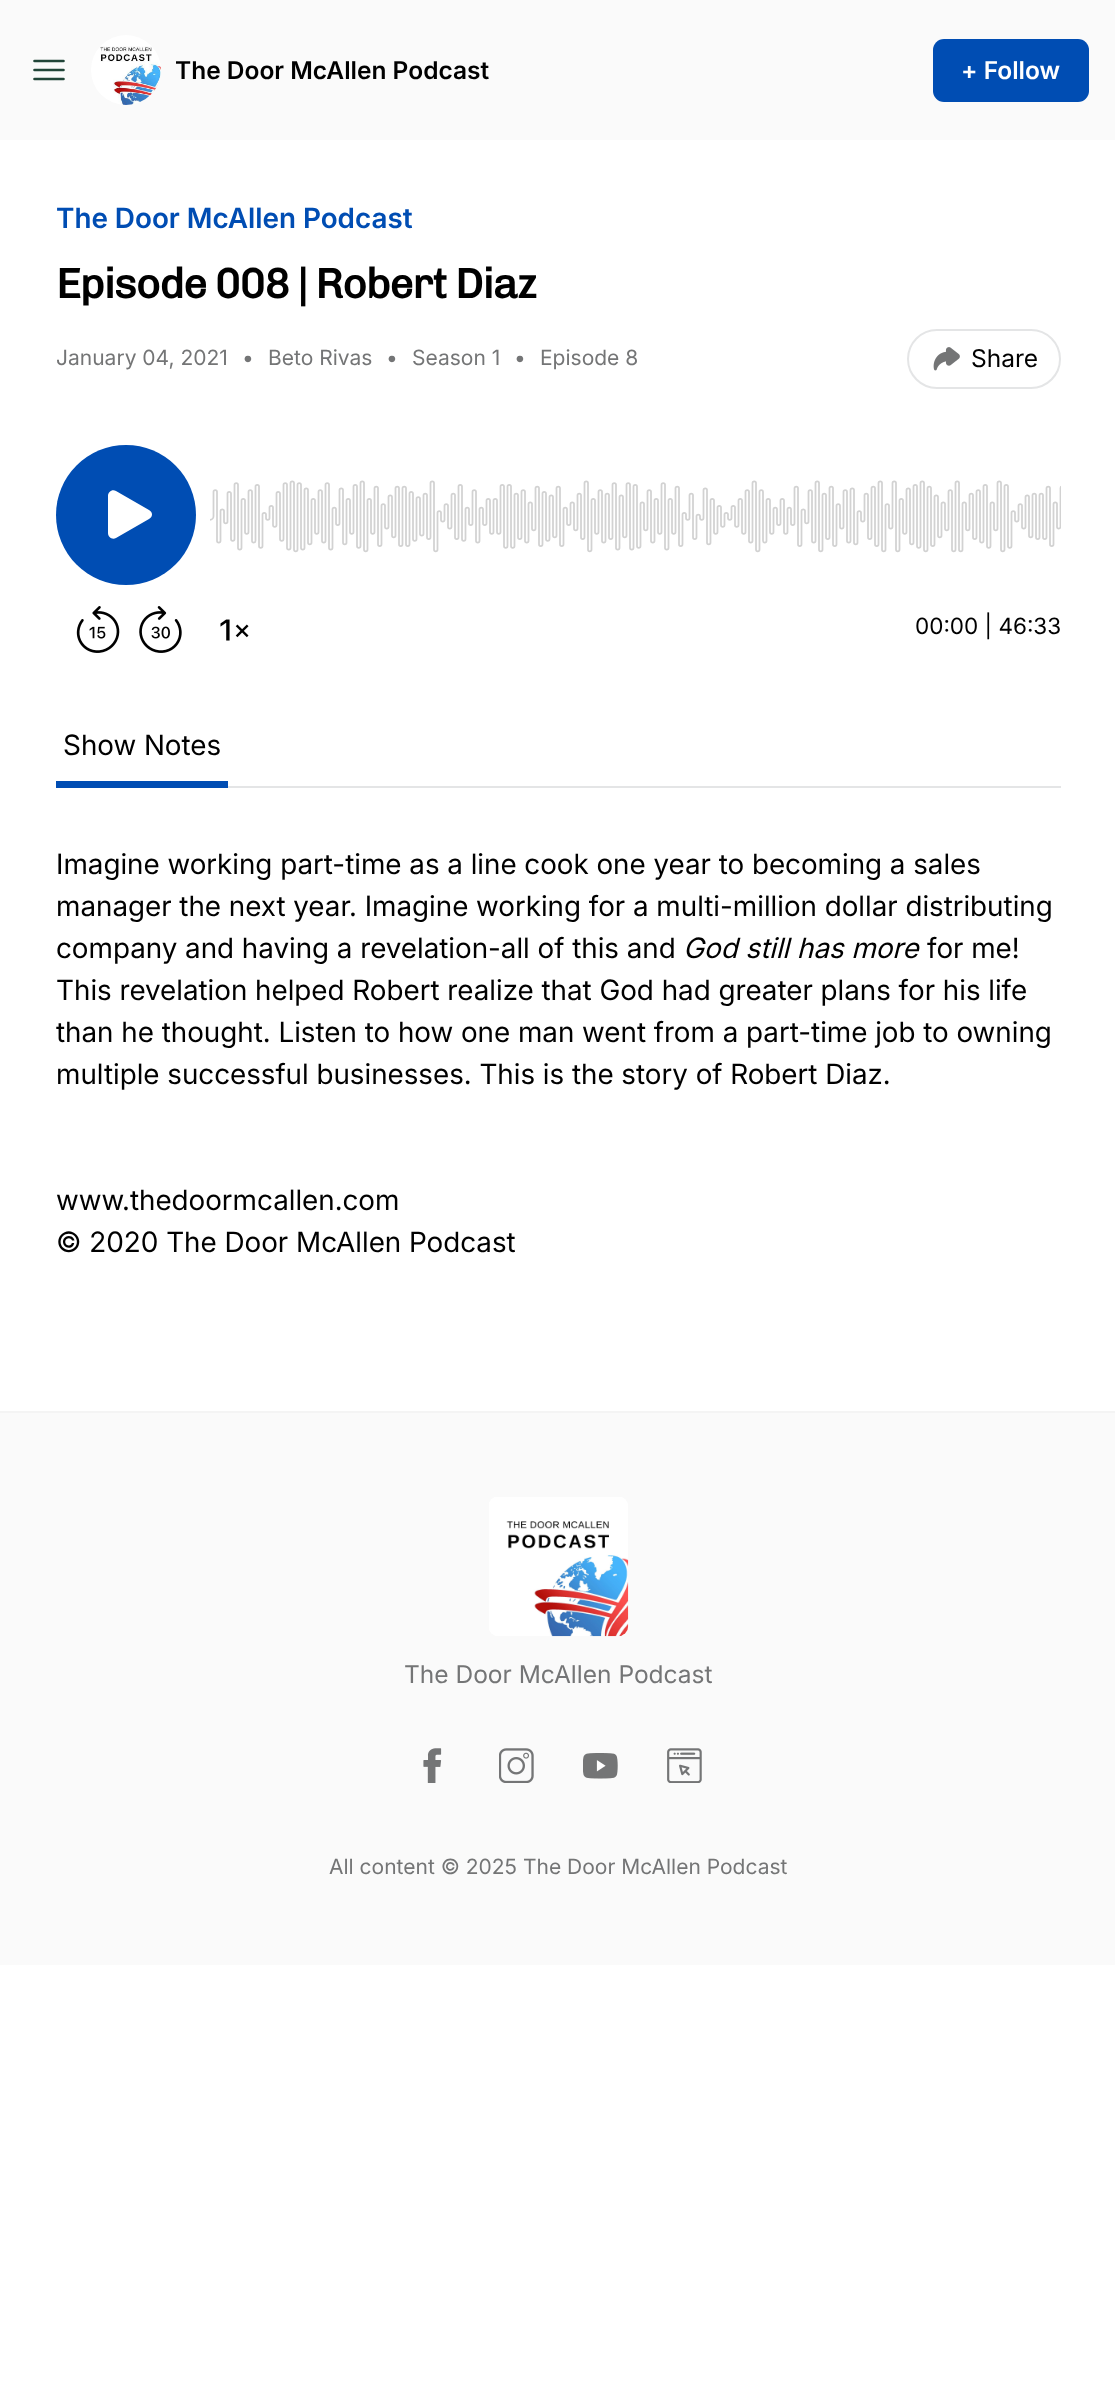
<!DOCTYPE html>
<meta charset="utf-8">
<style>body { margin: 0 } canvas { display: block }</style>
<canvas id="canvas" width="1115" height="2383"></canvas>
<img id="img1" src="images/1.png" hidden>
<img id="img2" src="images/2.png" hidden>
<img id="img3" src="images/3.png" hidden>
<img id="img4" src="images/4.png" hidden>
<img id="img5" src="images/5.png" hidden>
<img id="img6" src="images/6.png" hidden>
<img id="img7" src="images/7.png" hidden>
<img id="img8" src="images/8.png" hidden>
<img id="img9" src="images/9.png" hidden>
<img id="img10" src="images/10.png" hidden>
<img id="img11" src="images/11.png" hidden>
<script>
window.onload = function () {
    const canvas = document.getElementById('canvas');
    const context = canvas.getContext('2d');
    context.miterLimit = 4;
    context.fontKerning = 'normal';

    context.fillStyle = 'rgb(255, 255, 255)';
    context.fillRect(0, 0, 1115, 2383);
    context.fillStyle = 'rgb(250, 250, 250)';
    context.fillRect(0, 0, 1115, 140);
    context.beginPath();
    context.moveTo(34.5, 61);
    context.lineTo(63.5, 61);
    context.moveTo(34.5, 70);
    context.lineTo(63.5, 70);
    context.moveTo(34.5, 79);
    context.lineTo(63.5, 79);
    context.strokeStyle = 'rgb(33, 69, 56)';
    context.lineWidth = 2.6;
    context.lineCap = 'round';
    context.lineJoin = 'round';
    context.stroke();
    context.drawImage(document.getElementById('img1'), 91, 35, 70, 70);
    context.fillStyle = 'rgb(0, 77, 179)';
    context.beginPath();
    context.roundRect(933, 39, 156, 63, 11);
    context.fill();
    context.beginPath();
    context.roundRect(908, 330, 152, 58, 29);
    context.strokeStyle = 'rgb(228, 229, 230)';
    context.lineWidth = 2;
    context.lineJoin = 'miter';
    context.stroke();
    context.drawImage(document.getElementById('img2'), 933, 347, 27, 24);
    context.drawImage(document.getElementById('img3'), 76, 606, 44, 47);
    context.drawImage(document.getElementById('img4'), 139, 606, 43, 47);
    context.drawImage(document.getElementById('img5'), 220, 619, 29, 22);
    context.beginPath();
    context.arc(126, 515, 70, 0, 2 * Math.PI);
    context.fill();
    context.fillStyle = 'rgb(255, 255, 255)';
    context.beginPath();
    context.moveTo(108, 496);
    context.bezierCurveTo(108, 492, 112, 489, 116, 491);
    context.lineTo(149, 510);
    context.bezierCurveTo(153, 512, 153, 517, 149, 519);
    context.lineTo(116, 538);
    context.bezierCurveTo(112, 540, 108, 537, 108, 533);
    context.closePath();
    context.fill('evenodd');
    context.drawImage(document.getElementById('img6'), 210, 480, 851, 73);
    context.fillStyle = 'rgb(228, 229, 230)';
    context.fillRect(228, 786, 833, 2);
    context.fillStyle = 'rgb(0, 77, 179)';
    context.fillRect(56, 781, 172, 7);
    context.fillStyle = 'rgb(250, 250, 250)';
    context.fillRect(0, 1413, 1115, 552);
    context.fillStyle = 'rgb(244, 244, 244)';
    context.fillRect(0, 1411, 1115, 2);
    context.drawImage(document.getElementById('img7'), 489, 1497, 140, 140);
    context.drawImage(document.getElementById('img8'), 423, 1748, 19, 35);
    context.drawImage(document.getElementById('img9'), 499, 1748, 35, 35);
    context.drawImage(document.getElementById('img10'), 583, 1753, 35, 26);
    context.drawImage(document.getElementById('img11'), 667, 1748, 35, 35);
    context.font = '600 24.5px Inter';
    context.fillStyle = 'rgb(0, 0, 0)';
    context.fillText('The Door McAllen Podcast', 175, 79);
    context.fillStyle = 'rgb(255, 255, 255)';
    context.fillText('+ Follow', 961, 79);
    context.font = '600 28px "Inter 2"';
    context.fillStyle = 'rgb(0, 77, 179)';
    context.fillText('The Door McAllen Podcast', 56, 228);
    context.letterSpacing = '-1.05px';
    context.font = 'bold 42px Chivo';
    context.fillStyle = 'rgb(0, 0, 0)';
    context.fillText('Episode 008 | Robert Diaz', 56, 298);
    context.letterSpacing = '0px';
    context.font = '21px Inter';
    context.fillStyle = 'rgb(116, 117, 118)';
    context.fillText('January 04, 2021', 56, 365);
    context.fillText('•', 242, 365);
    context.fillText('Beto Rivas', 268, 365);
    context.fillText('•', 386, 365);
    context.fillText('Season 1', 412, 365);
    context.fillText('•', 514, 365);
    context.fillText('Episode 8', 540, 365);
    context.font = '24.5px Inter';
    context.fillStyle = 'rgb(0, 0, 0)';
    context.fillText('Share', 971, 367);
    context.font = '22.5px Inter';
    context.fillText('00:00 | 46:33', 915, 634);
    context.font = '28px "Inter 2"';
    context.fillText('Show Notes', 63, 755);
    context.fillText('Imagine working part-time as a line cook one year to becoming a sales', 56, 874);
    context.fillText('manager the next year. Imagine working for a multi-million dollar distributing', 56, 916);
    context.fillText('company and having a revelation-all of this and', 56, 958);
    context.font = 'italic 28px Inter';
    context.fillText('God still has more', 683, 958);
    context.font = '28px "Inter 2"';
    context.fillText('for me!', 927, 958);
    context.fillText('This revelation helped Robert realize that God had greater plans for his life', 56, 1000);
    context.fillText('than he thought. Listen to how one man went from a part-time job to owning', 56, 1042);
    context.fillText('multiple successful businesses. This is the story of Robert Diaz.', 56, 1084);
    context.fillText('www.thedoormcallen.com', 56, 1210);
    context.fillText('© 2020 The Door McAllen Podcast', 56, 1252);
    context.font = '24.5px Inter';
    context.fillStyle = 'rgb(116, 117, 118)';
    context.fillText('The Door McAllen Podcast', 404, 1683);
    context.font = '21px Inter';
    context.fillText('All content © 2025 The Door McAllen Podcast', 329, 1874);
};
</script>
